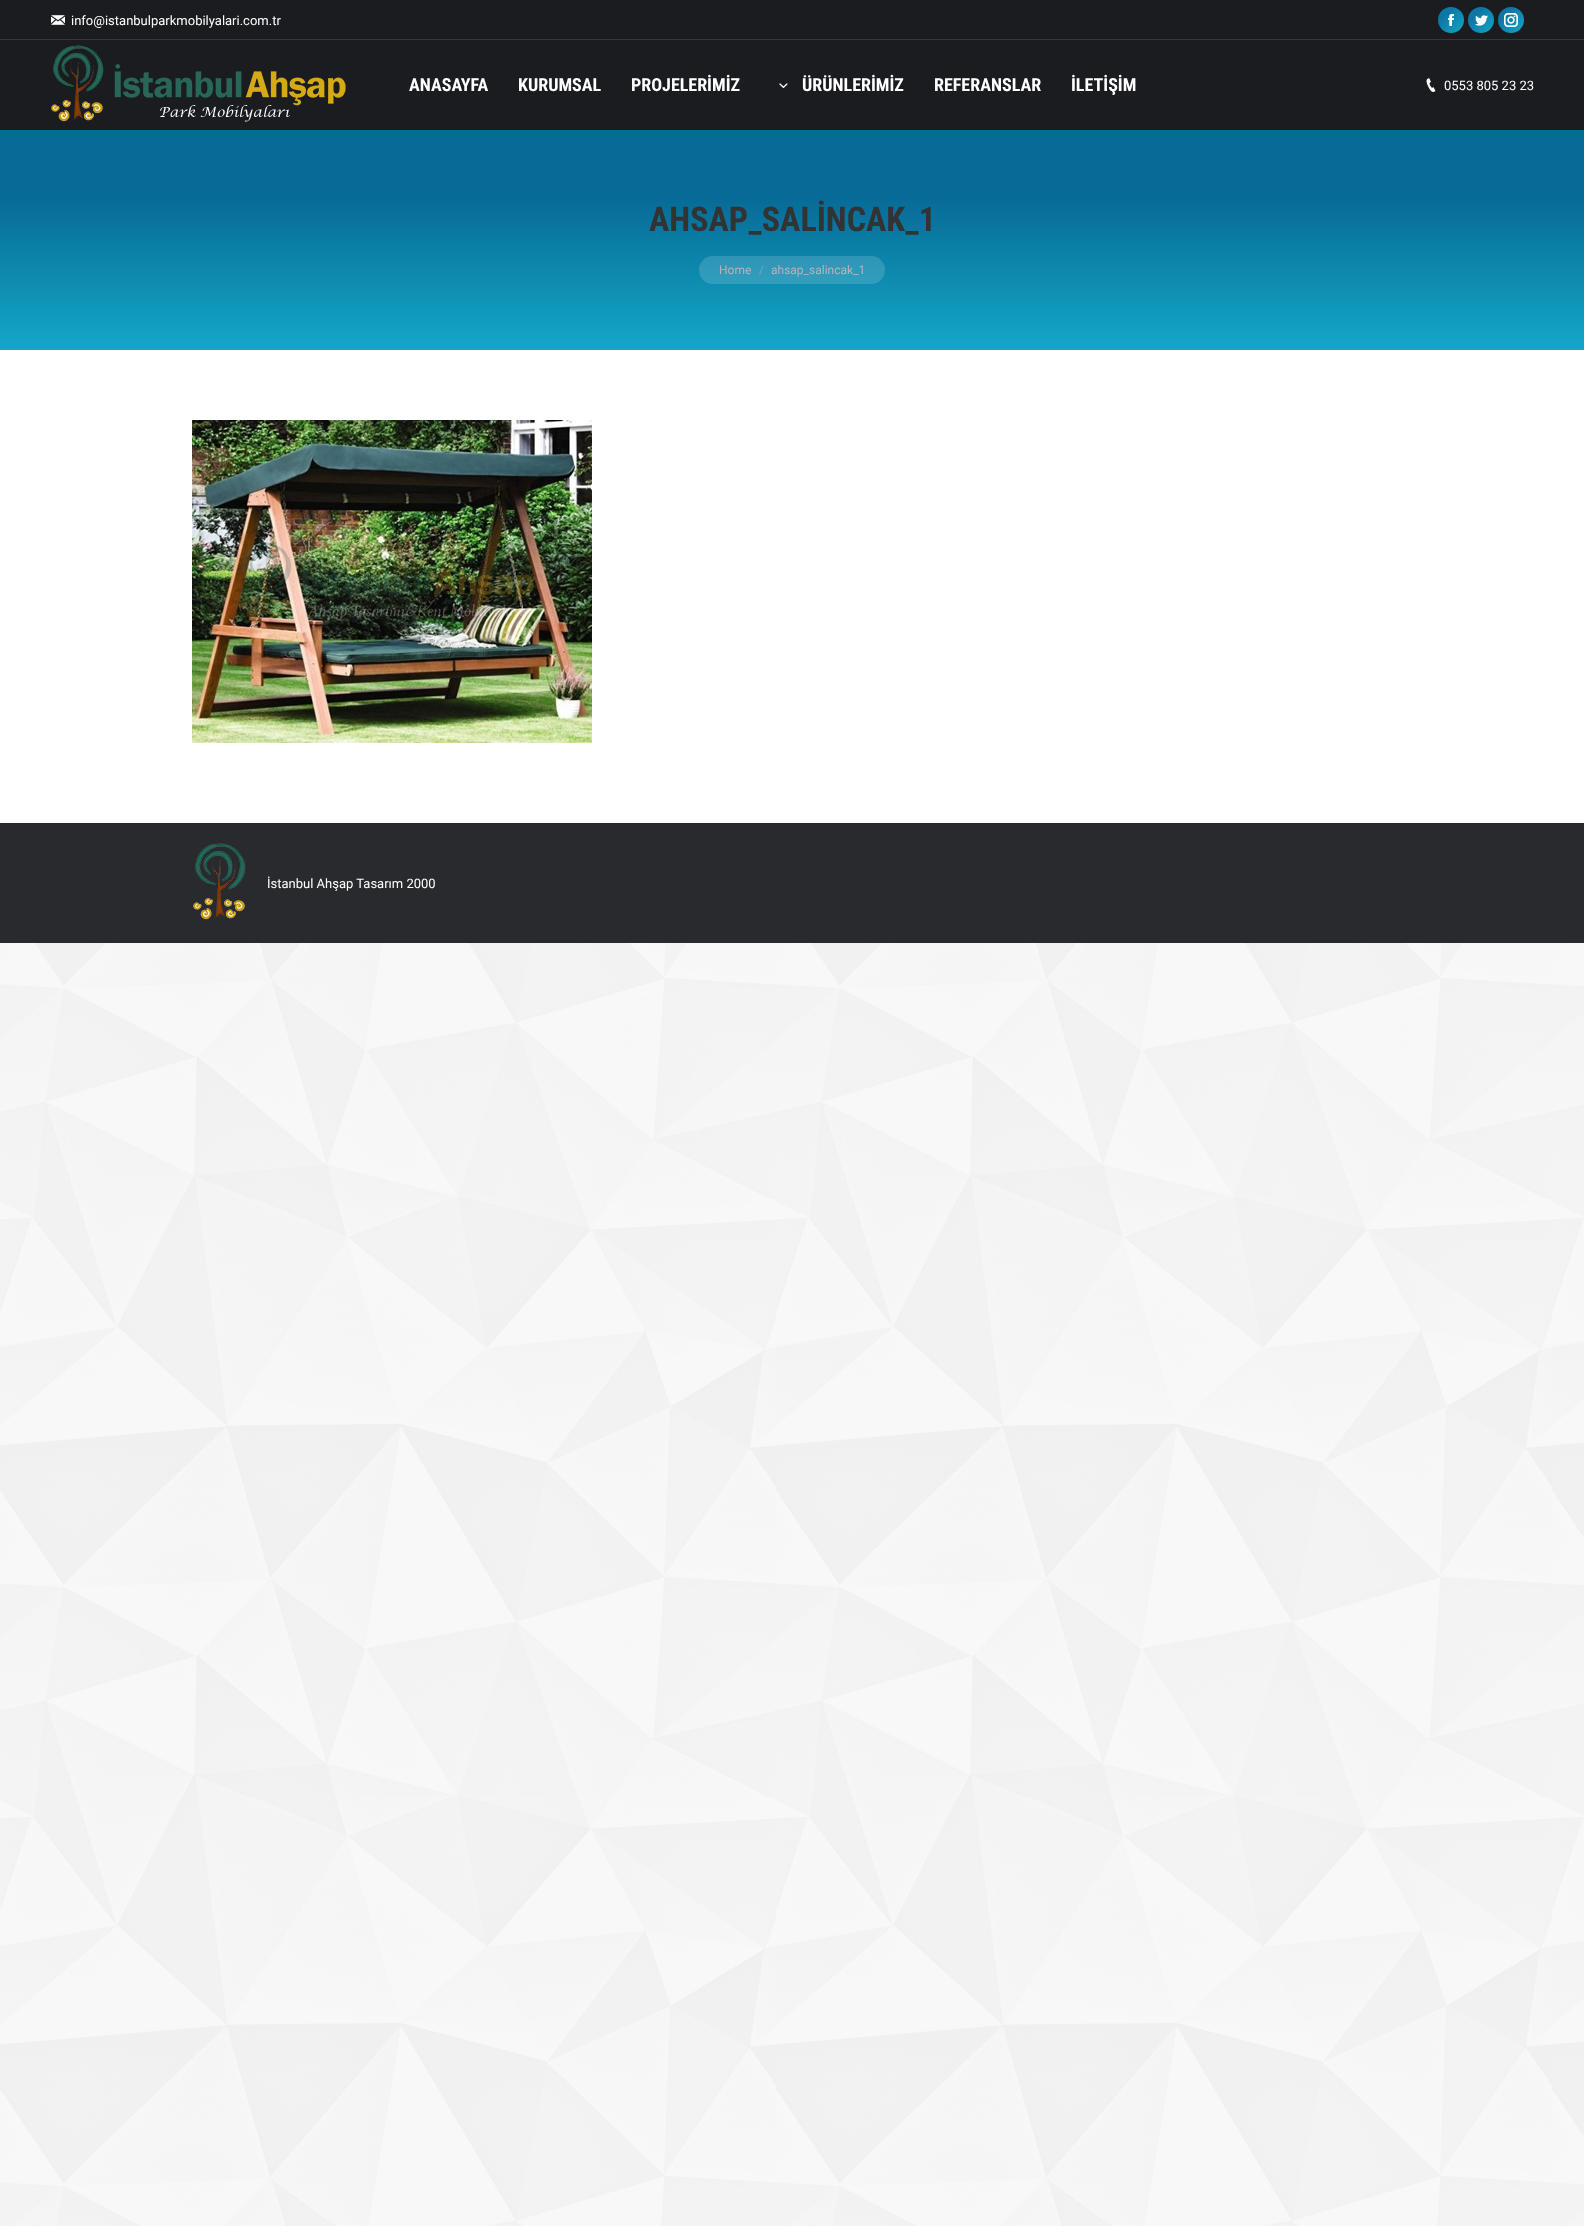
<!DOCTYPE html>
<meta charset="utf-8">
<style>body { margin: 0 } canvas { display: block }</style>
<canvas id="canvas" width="1584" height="2226"></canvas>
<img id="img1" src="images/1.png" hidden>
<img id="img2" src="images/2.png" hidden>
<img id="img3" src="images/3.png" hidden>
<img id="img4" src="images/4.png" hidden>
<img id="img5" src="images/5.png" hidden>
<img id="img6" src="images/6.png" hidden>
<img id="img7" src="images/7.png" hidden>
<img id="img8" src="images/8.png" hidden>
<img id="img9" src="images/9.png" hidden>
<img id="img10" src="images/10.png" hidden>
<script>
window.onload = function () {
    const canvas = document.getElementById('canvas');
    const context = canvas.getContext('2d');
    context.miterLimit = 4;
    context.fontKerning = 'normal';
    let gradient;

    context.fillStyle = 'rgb(247, 247, 247)';
    context.fillRect(0, 0, 1584, 2226);
    context.drawImage(document.getElementById('img1'), 0, 943, 1584, 1283);
    context.fillStyle = 'rgb(255, 255, 255)';
    context.fillRect(0, 350, 1584, 473);
    context.fillStyle = 'rgb(26, 28, 32)';
    context.fillRect(0, 0, 1584, 130);
    context.drawImage(document.getElementById('img2'), 51, 15, 14, 10);
    gradient = context.createLinearGradient(1438, 7, 1464, 33);
    gradient.addColorStop(0.3, 'rgb(13, 118, 166)');
    gradient.addColorStop(1, 'rgb(19, 168, 198)');
    context.fillStyle = gradient;
    context.beginPath();
    context.arc(1451, 20, 13, 0, 2 * Math.PI);
    context.fill();
    context.drawImage(document.getElementById('img3'), 1448, 14, 6, 12);
    gradient = context.createLinearGradient(1468, 7, 1494, 33);
    gradient.addColorStop(0.3, 'rgb(13, 118, 166)');
    gradient.addColorStop(1, 'rgb(19, 168, 198)');
    context.fillStyle = gradient;
    context.beginPath();
    context.arc(1481, 20, 13, 0, 2 * Math.PI);
    context.fill();
    context.drawImage(document.getElementById('img4'), 1475, 15, 13, 11);
    gradient = context.createLinearGradient(1498, 7, 1524, 33);
    gradient.addColorStop(0.3, 'rgb(13, 118, 166)');
    gradient.addColorStop(1, 'rgb(19, 168, 198)');
    context.fillStyle = gradient;
    context.beginPath();
    context.arc(1511, 20, 13, 0, 2 * Math.PI);
    context.fill();
    context.drawImage(document.getElementById('img5'), 1504, 13, 14, 14);
    context.fillStyle = 'rgb(53, 55, 59)';
    context.fillRect(0, 39, 1584, 1);
    context.drawImage(document.getElementById('img6'), 51, 45, 295, 77);
    context.drawImage(document.getElementById('img7'), 779, 83, 9, 5);
    context.drawImage(document.getElementById('img8'), 1426, 78, 10, 14);
    gradient = context.createLinearGradient(792, 130, 792, 350);
    gradient.addColorStop(0.3, 'rgb(7, 106, 151)');
    gradient.addColorStop(1, 'rgb(19, 168, 198)');
    context.fillStyle = gradient;
    context.fillRect(0, 130, 1584, 220);
    context.fillStyle = 'rgba(255, 255, 255, 0.15)';
    context.beginPath();
    context.roundRect(699, 256, 186, 28, 14);
    context.fill();
    context.drawImage(document.getElementById('img9'), 192, 420, 400, 323);
    context.fillStyle = 'rgb(40, 42, 45)';
    context.fillRect(0, 823, 1584, 120);
    context.drawImage(document.getElementById('img10'), 193, 843, 53, 77);
    context.font = '13px Roboto';
    context.fillStyle = 'rgb(255, 255, 255)';
    context.fillText('info@istanbulparkmobilyalari.com.tr', 71, 25);
    context.font = 'bold 18px Roboto Condensed';
    context.fillText('ANASAYFA', 409, 91);
    context.fillText('KURUMSAL', 518, 91);
    context.fillText('PROJELERİMİZ', 631, 91);
    context.fillText('ÜRÜNLERİMİZ', 802, 91);
    context.fillText('REFERANSLAR', 934, 91);
    context.fillText('İLETİŞİM', 1071, 91);
    context.font = '13px Roboto';
    context.fillText('0553 805 23 23', 1444, 90);
    context.font = 'bold 34px Roboto Condensed';
    context.fillStyle = 'rgb(51, 51, 51)';
    context.fillText('AHSAP_SALİNCAK_1', 649, 231);
    context.font = '12px Roboto';
    context.fillStyle = 'rgb(180, 181, 187)';
    context.fillText('Home', 719, 274);
    context.fillStyle = 'rgb(115, 167, 186)';
    context.fillText('/', 759, 274);
    context.fillStyle = 'rgb(180, 181, 187)';
    context.fillText('ahsap_salincak_1', 771, 274);
    context.font = '13px Roboto';
    context.fillStyle = 'rgb(255, 255, 255)';
    context.fillText('İstanbul Ahşap Tasarım 2000', 267, 888);
};
</script>
